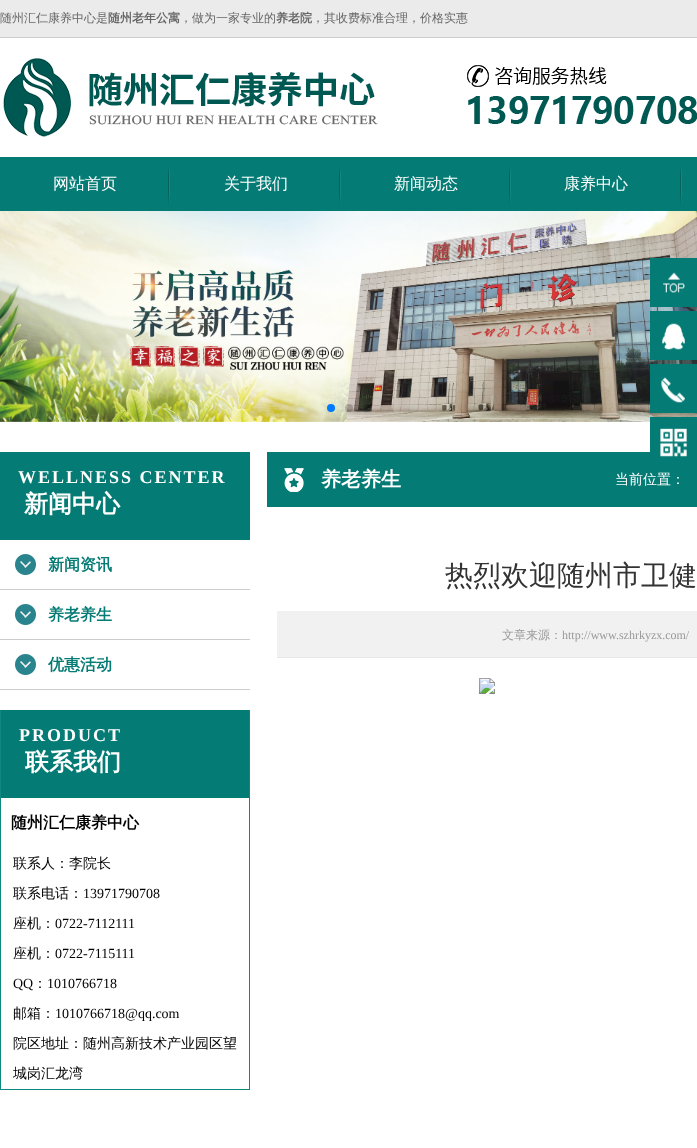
<!DOCTYPE html>
<meta charset="utf-8">
<style>body { margin: 0 } canvas { display: block }</style>
<canvas id="canvas" width="697" height="1148"></canvas>
<img id="img1" src="images/1.png" hidden>
<img id="img2" src="images/2.png" hidden>
<img id="img3" src="images/3.png" hidden>
<img id="img4" src="images/4.png" hidden>
<img id="img5" src="images/5.png" hidden>
<img id="img6" src="images/6.png" hidden>
<img id="img7" src="images/7.png" hidden>
<img id="img8" src="images/8.png" hidden>
<img id="img9" src="images/9.png" hidden>
<img id="img10" src="images/10.png" hidden>
<img id="img11" src="images/11.png" hidden>
<script>
window.onload = function () {
    const canvas = document.getElementById('canvas');
    const context = canvas.getContext('2d');
    context.miterLimit = 4;
    context.fontKerning = 'normal';

    context.fillStyle = 'rgb(255, 255, 255)';
    context.fillRect(0, 0, 697, 1148);
    context.fillStyle = 'rgb(235, 235, 235)';
    context.fillRect(0, 0, 697, 37);
    context.fillStyle = 'rgb(204, 204, 204)';
    context.fillRect(0, 37, 697, 1);
    context.drawImage(document.getElementById('img1'), 3, 58, 375, 79);
    context.drawImage(document.getElementById('img2'), 467, 65, 230, 59);
    context.fillStyle = 'rgb(4, 123, 116)';
    context.fillRect(0, 157, 697, 54);
    context.drawImage(document.getElementById('img3'), 168, 168, 2, 43);
    context.drawImage(document.getElementById('img3'), 339, 168, 2, 43);
    context.drawImage(document.getElementById('img3'), 509, 168, 2, 43);
    context.drawImage(document.getElementById('img3'), 680, 168, 2, 43);
    context.drawImage(document.getElementById('img4'), 0, 211, 697, 211);
    context.fillStyle = 'rgb(0, 122, 255)';
    context.beginPath();
    context.arc(331, 408, 4, 0, 2 * Math.PI);
    context.fill();
    context.fillStyle = 'rgba(0, 0, 0, 0.2)';
    context.beginPath();
    context.arc(349, 408, 4, 0, 2 * Math.PI);
    context.fill();
    context.beginPath();
    context.arc(367, 408, 4, 0, 2 * Math.PI);
    context.fill();
    context.fillStyle = 'rgb(4, 123, 116)';
    context.fillRect(650, 258, 47, 49);
    context.drawImage(document.getElementById('img5'), 663, 272, 22, 21);
    context.fillRect(650, 311, 47, 49);
    context.drawImage(document.getElementById('img6'), 662, 323, 23, 27);
    context.fillRect(650, 364, 47, 49);
    context.drawImage(document.getElementById('img7'), 661, 377, 24, 26);
    context.fillRect(650, 417, 47, 35);
    context.fillRect(267, 452, 430, 55);
    context.drawImage(document.getElementById('img8'), 660, 428, 27, 29);
    context.fillRect(0, 452, 250, 88);
    context.drawImage(document.getElementById('img9'), 15, 554, 21, 21);
    context.fillStyle = 'rgb(204, 204, 204)';
    context.fillRect(0, 589, 250, 1);
    context.drawImage(document.getElementById('img9'), 15, 604, 21, 21);
    context.fillRect(0, 639, 250, 1);
    context.drawImage(document.getElementById('img9'), 15, 654, 21, 21);
    context.fillRect(0, 689, 250, 1);
    context.fillStyle = 'rgb(15, 136, 129)';
    context.fillRect(249, 710, 1, 380);
    context.fillRect(0, 1089, 250, 1);
    context.fillRect(0, 710, 1, 380);
    context.fillStyle = 'rgb(4, 123, 116)';
    context.fillRect(1, 710, 248, 88);
    context.drawImage(document.getElementById('img10'), 284, 468, 20, 24);
    context.fillStyle = 'rgb(241, 241, 241)';
    context.fillRect(277, 611, 420, 46);
    context.fillStyle = 'rgb(231, 231, 231)';
    context.fillRect(277, 657, 420, 1);
    context.drawImage(document.getElementById('img11'), 479, 678, 16, 16);
    context.font = '500 12px WenQuanYi Zen Hei';
    context.fillStyle = 'rgb(102, 102, 102)';
    context.fillText('随州汇仁康养中心是', 0, 22);
    context.font = 'bold 12px WenQuanYi Zen Hei';
    context.fillText('随州老年公寓', 108, 22);
    context.font = '500 12px WenQuanYi Zen Hei';
    context.fillText('，做为一家专业的', 180, 22);
    context.font = 'bold 12px WenQuanYi Zen Hei';
    context.fillText('养老院', 276, 22);
    context.font = '500 12px WenQuanYi Zen Hei';
    context.fillText('，其收费标准合理，价格实惠', 312, 22);
    context.font = '500 16px WenQuanYi Zen Hei';
    context.fillStyle = 'rgb(255, 255, 255)';
    context.fillText('网站首页', 53, 189);
    context.fillText('关于我们', 224, 189);
    context.fillText('新闻动态', 394, 189);
    context.fillText('康养中心', 564, 189);
    context.letterSpacing = '2px';
    context.font = 'bold 18px Liberation Serif';
    context.fillText('WELLNESS CENTER', 18, 483);
    context.letterSpacing = '0px';
    context.font = 'bold 24px WenQuanYi Zen Hei';
    context.fillText('新闻中心', 24, 512);
    context.font = 'bold 16px WenQuanYi Zen Hei';
    context.fillStyle = 'rgb(4, 123, 116)';
    context.fillText('新闻资讯', 48, 570);
    context.fillText('养老养生', 48, 620);
    context.fillText('优惠活动', 48, 670);
    context.letterSpacing = '2px';
    context.font = 'bold 18px Liberation Serif';
    context.fillStyle = 'rgb(255, 255, 255)';
    context.fillText('PRODUCT', 19, 741);
    context.letterSpacing = '0px';
    context.font = 'bold 24px WenQuanYi Zen Hei';
    context.fillText('联系我们', 25, 770);
    context.font = 'bold 16px WenQuanYi Zen Hei';
    context.fillStyle = 'rgb(0, 0, 0)';
    context.fillText('随州汇仁康养中心', 11, 828);
    context.font = '500 14px WenQuanYi Zen Hei';
    context.fillText('联系人：李院长', 13, 868);
    context.fillText('联系电话：', 13, 898);
    context.font = '14px Liberation Serif';
    context.fillText('13971790708', 83, 898);
    context.font = '500 14px WenQuanYi Zen Hei';
    context.fillText('座机：', 13, 928);
    context.font = '14px Liberation Serif';
    context.fillText('0722-7112111', 55, 928);
    context.font = '500 14px WenQuanYi Zen Hei';
    context.fillText('座机：', 13, 958);
    context.font = '14px Liberation Serif';
    context.fillText('0722-7115111', 55, 958);
    context.fillText('QQ', 13, 988);
    context.font = '500 14px WenQuanYi Zen Hei';
    context.fillText('：', 33, 988);
    context.font = '14px Liberation Serif';
    context.fillText('1010766718', 47, 988);
    context.font = '500 14px WenQuanYi Zen Hei';
    context.fillText('邮箱：', 13, 1018);
    context.font = '14px Liberation Serif';
    context.fillText('1010766718@qq.com', 55, 1018);
    context.font = '500 14px WenQuanYi Zen Hei';
    context.fillText('院区地址：随州高新技术产业园区望', 13, 1048);
    context.fillText('城岗汇龙湾', 13, 1078);
    context.font = 'bold 20px WenQuanYi Zen Hei';
    context.fillStyle = 'rgb(255, 255, 255)';
    context.fillText('养老养生', 321, 486);
    context.font = '500 14px WenQuanYi Zen Hei';
    context.fillText('当前位置：', 615, 484);
    context.font = '500 28px WenQuanYi Zen Hei';
    context.fillStyle = 'rgb(51, 51, 51)';
    context.fillText('热烈欢迎随州市卫健', 445, 585);
    context.font = '500 12px WenQuanYi Zen Hei';
    context.fillStyle = 'rgb(153, 153, 153)';
    context.fillText('文章来源：', 502, 639);
    context.font = '12px Liberation Serif';
    context.fillText('http://www.szhrkyzx.com/', 562, 639);
};
</script>
